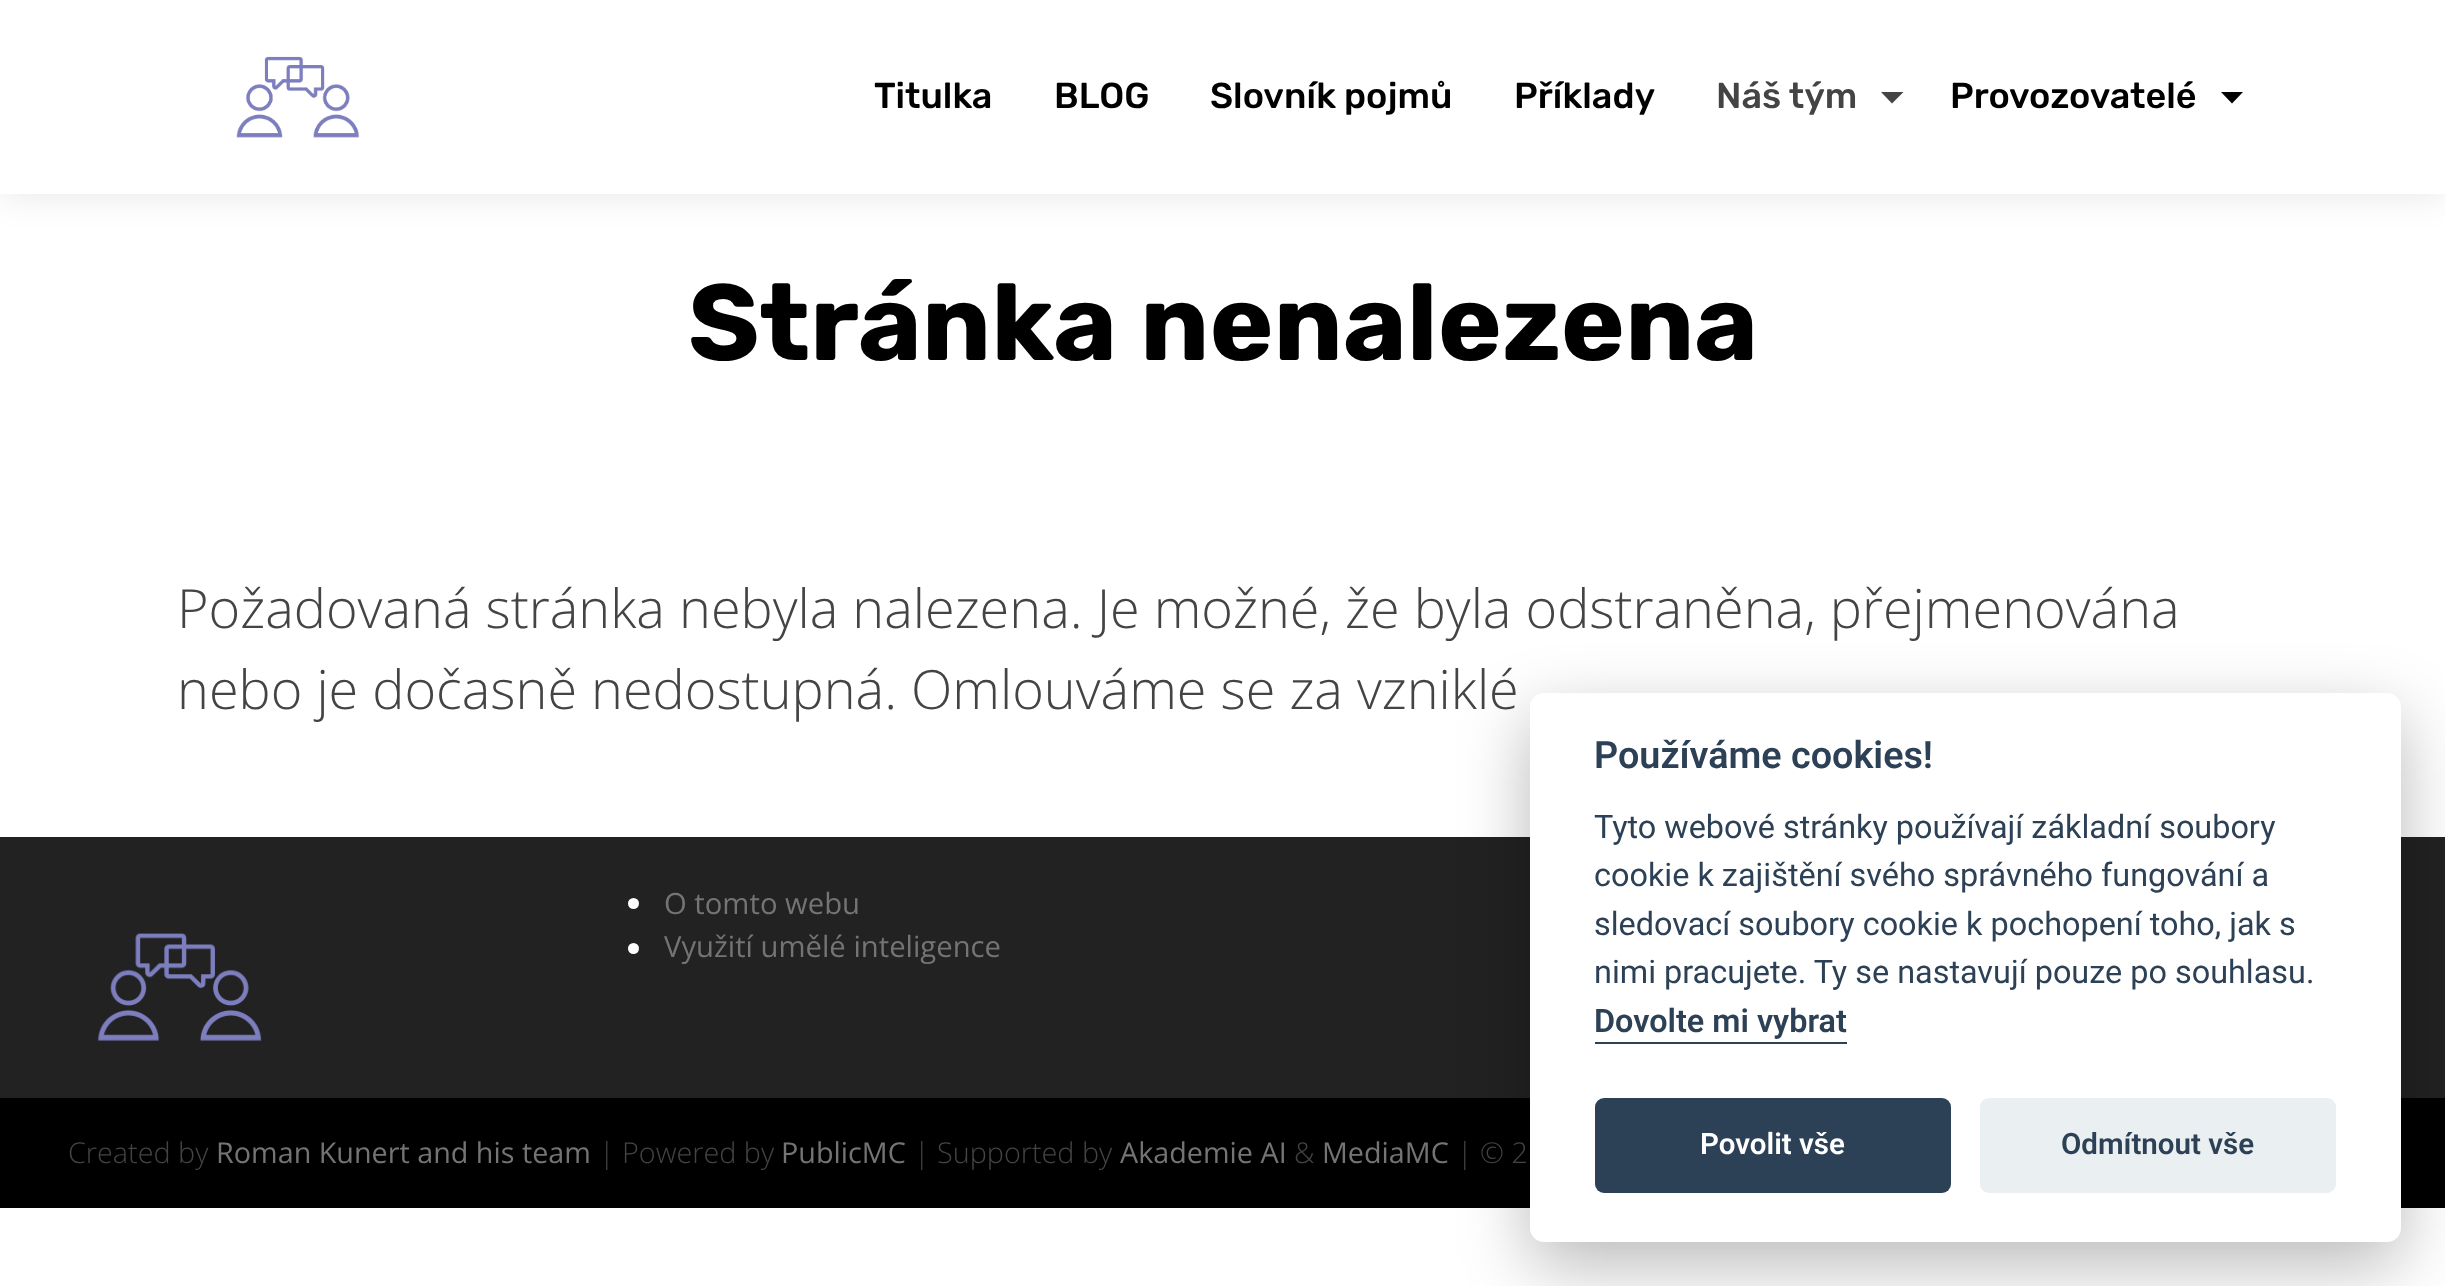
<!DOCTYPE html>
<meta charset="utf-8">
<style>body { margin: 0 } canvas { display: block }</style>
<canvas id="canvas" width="2445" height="1286"></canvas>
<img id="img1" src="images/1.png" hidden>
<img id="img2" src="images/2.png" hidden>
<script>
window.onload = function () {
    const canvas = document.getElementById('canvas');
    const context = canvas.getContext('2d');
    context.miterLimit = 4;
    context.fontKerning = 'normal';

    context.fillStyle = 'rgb(255, 255, 255)';
    context.fillRect(0, 0, 2445, 1286);
    context.save();
    context.beginPath();
    context.moveTo(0, 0);
    context.lineTo(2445, 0);
    context.lineTo(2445, 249);
    context.lineTo(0, 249);
    context.closePath();
    context.moveTo(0, 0);
    context.lineTo(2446, 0);
    context.lineTo(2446, 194);
    context.lineTo(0, 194);
    context.closePath();
    context.clip('evenodd');
    context.fillStyle = 'rgba(0, 0, 0, 0.1)';
    context.filter = 'blur(18px)';
    context.beginPath();
    context.rect(0, 0, 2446, 194);
    context.fill();
    context.filter = 'none';
    context.restore();
    context.fillStyle = 'rgba(255, 255, 255, 0.6)';
    context.fillRect(8, 193, 2430, 1);
    context.drawImage(document.getElementById('img1'), 236, 56, 124, 82);
    context.fillStyle = 'rgb(68, 68, 68)';
    context.beginPath();
    context.moveTo(1881, 92);
    context.lineTo(1903.5, 92);
    context.lineTo(1892, 103.5);
    context.closePath();
    context.fill();
    context.fillStyle = 'rgb(0, 0, 0)';
    context.beginPath();
    context.moveTo(2221, 92);
    context.lineTo(2243, 92);
    context.lineTo(2232, 103.5);
    context.closePath();
    context.fill();
    context.fillStyle = 'rgb(34, 34, 34)';
    context.fillRect(0, 837, 2445, 261);
    context.drawImage(document.getElementById('img2'), 98, 933, 164, 108);
    context.fillStyle = 'rgb(255, 255, 255)';
    context.beginPath();
    context.arc(633.5, 903.5, 5.5, 0, 2 * Math.PI);
    context.fill();
    context.beginPath();
    context.arc(633.5, 948.5, 5.5, 0, 2 * Math.PI);
    context.fill();
    context.fillStyle = 'rgb(0, 0, 0)';
    context.fillRect(0, 1098, 2445, 110);
    context.fillStyle = 'rgba(2, 2, 3, 0.28)';
    context.filter = 'blur(34px)';
    context.beginPath();
    context.roundRect(1530, 716, 871, 549, 14);
    context.fill();
    context.filter = 'none';
    context.fillStyle = 'rgb(255, 255, 255)';
    context.beginPath();
    context.roundRect(1530, 693, 871, 549, 14);
    context.fill();
    context.fillStyle = 'rgb(45, 65, 86)';
    context.fillRect(1595, 1042, 252, 2);
    context.beginPath();
    context.roundRect(1595, 1098, 356, 95, 9);
    context.fill();
    context.fillStyle = 'rgb(234, 239, 242)';
    context.beginPath();
    context.roundRect(1980, 1098, 356, 95, 9);
    context.fill();
    context.font = '500 36px Rubik';
    context.fillStyle = 'rgb(0, 0, 0)';
    context.fillText('Titulka', 874, 108);
    context.fillText('BLOG', 1054, 108);
    context.fillText('Slovník pojmů', 1210, 108);
    context.fillText('Příklady', 1514, 108);
    context.fillStyle = 'rgb(68, 68, 68)';
    context.fillText('Náš tým', 1716, 108);
    context.fillStyle = 'rgb(0, 0, 0)';
    context.fillText('Provozovatelé', 1950, 108);
    context.font = 'bold 108px Rubik';
    context.fillText('Stránka nenalezena', 688, 360);
    context.font = '300 54px Open Sans';
    context.fillStyle = 'rgb(68, 68, 68)';
    context.fillText('Požadovaná stránka nebyla nalezena. Je možné, že byla odstraněna, přejmenována', 177, 628);
    context.fillText('nebo je dočasně nedostupná. Omlouváme se za vzniklé', 177, 709);
    context.font = '29.25px Open Sans';
    context.fillStyle = 'rgb(116, 116, 116)';
    context.fillText('O tomto webu', 664, 914);
    context.fillText('Využití umělé inteligence', 664, 957);
    context.font = '600 37.75px Roboto';
    context.fillStyle = 'rgb(45, 65, 86)';
    context.fillText('Používáme cookies!', 1594, 768);
    context.font = '32.4px Roboto';
    context.fillText('Tyto webové stránky používají základní soubory', 1594, 838);
    context.fillText('cookie k zajištění svého správného fungování a', 1594, 886);
    context.fillText('sledovací soubory cookie k pochopení toho, jak s', 1594, 935);
    context.fillText('nimi pracujete. Ty se nastavují pouze po souhlasu.', 1594, 983);
    context.font = '600 32.4px Roboto';
    context.fillText('Dovolte mi vybrat', 1594, 1032);
    context.font = '600 29.5px Roboto';
    context.fillStyle = 'rgb(255, 255, 255)';
    context.fillText('Povolit vše', 1700, 1154);
    context.fillStyle = 'rgb(45, 65, 86)';
    context.fillText('Odmítnout vše', 2061, 1154);
    context.font = '300 28.75px Open Sans';
    context.fillStyle = 'rgb(68, 68, 68)';
    context.fillText('Created by', 68, 1163);
    context.font = '28.75px Open Sans';
    context.fillStyle = 'rgb(116, 116, 116)';
    context.fillText('Roman Kunert and his team', 216, 1163);
    context.font = '300 28.75px Open Sans';
    context.fillStyle = 'rgb(68, 68, 68)';
    context.fillText('| Powered by', 599, 1163);
    context.font = '28.75px Open Sans';
    context.fillStyle = 'rgb(116, 116, 116)';
    context.fillText('PublicMC', 781, 1163);
    context.font = '300 28.75px Open Sans';
    context.fillStyle = 'rgb(68, 68, 68)';
    context.fillText('| Supported by', 914, 1163);
    context.font = '28.75px Open Sans';
    context.fillStyle = 'rgb(116, 116, 116)';
    context.fillText('Akademie AI', 1120, 1163);
    context.font = '300 28.75px Open Sans';
    context.fillStyle = 'rgb(68, 68, 68)';
    context.fillText('&', 1294, 1163);
    context.font = '28.75px Open Sans';
    context.fillStyle = 'rgb(116, 116, 116)';
    context.fillText('MediaMC', 1322, 1163);
    context.font = '300 28.75px Open Sans';
    context.fillStyle = 'rgb(68, 68, 68)';
    context.fillText('| © 2', 1457, 1163);
};
</script>
